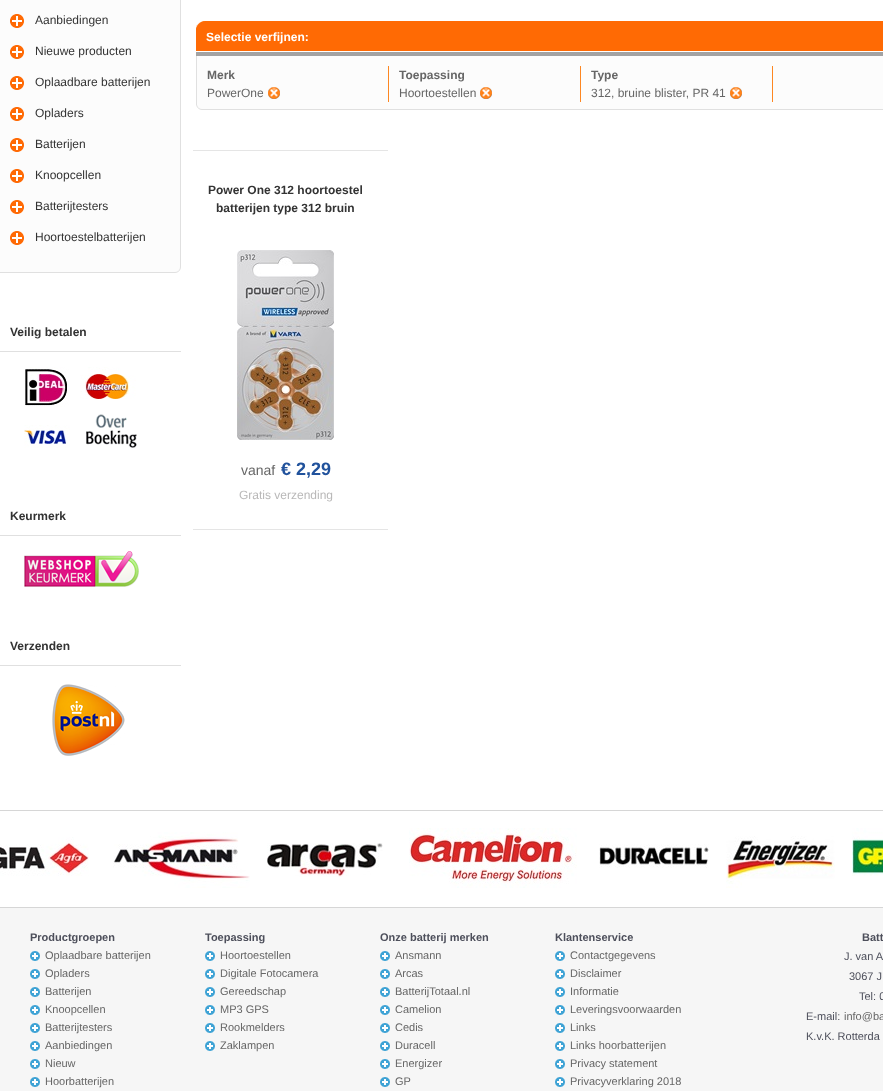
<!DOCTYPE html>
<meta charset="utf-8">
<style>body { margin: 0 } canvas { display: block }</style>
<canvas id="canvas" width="883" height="1091"></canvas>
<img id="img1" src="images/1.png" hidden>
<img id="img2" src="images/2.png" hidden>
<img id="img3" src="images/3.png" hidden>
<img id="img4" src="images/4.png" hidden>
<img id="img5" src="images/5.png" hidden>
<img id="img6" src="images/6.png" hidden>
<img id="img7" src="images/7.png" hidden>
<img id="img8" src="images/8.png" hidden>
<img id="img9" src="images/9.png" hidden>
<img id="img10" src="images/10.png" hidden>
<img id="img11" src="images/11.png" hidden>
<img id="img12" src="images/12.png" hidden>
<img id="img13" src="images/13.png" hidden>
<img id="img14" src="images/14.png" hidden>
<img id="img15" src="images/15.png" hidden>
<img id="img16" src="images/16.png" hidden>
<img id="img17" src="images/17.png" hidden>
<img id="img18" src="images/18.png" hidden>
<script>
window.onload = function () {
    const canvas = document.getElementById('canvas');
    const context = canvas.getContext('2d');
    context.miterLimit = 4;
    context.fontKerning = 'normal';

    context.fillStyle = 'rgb(255, 255, 255)';
    context.fillRect(0, 0, 883, 1091);
    context.fillStyle = 'rgb(252, 252, 252)';
    context.fillRect(0, 0, 180, 253);
    context.fillStyle = 'rgb(224, 224, 224)';
    context.fillRect(180, 0, 1, 253);
    context.drawImage(document.getElementById('img1'), 10, 14, 14, 14);
    context.drawImage(document.getElementById('img1'), 10, 45, 14, 14);
    context.drawImage(document.getElementById('img1'), 10, 76, 14, 14);
    context.drawImage(document.getElementById('img1'), 10, 107, 14, 14);
    context.drawImage(document.getElementById('img1'), 10, 138, 14, 14);
    context.drawImage(document.getElementById('img1'), 10, 169, 14, 14);
    context.drawImage(document.getElementById('img1'), 10, 200, 14, 14);
    context.drawImage(document.getElementById('img1'), 10, 231, 14, 14);
    context.drawImage(document.getElementById('img2'), 0, 253, 181, 20);
    context.fillRect(0, 351, 181, 1);
    context.drawImage(document.getElementById('img3'), 24, 367, 113, 81);
    context.fillRect(0, 535, 181, 1);
    context.drawImage(document.getElementById('img4'), 24, 551, 115, 36);
    context.fillRect(0, 665, 181, 1);
    context.drawImage(document.getElementById('img5'), 52, 684, 73, 72);
    context.fillStyle = 'rgb(252, 252, 252)';
    context.fillRect(197, 56, 686, 49);
    context.fillStyle = 'rgb(224, 224, 224)';
    context.fillRect(196, 56, 1, 54);
    context.fillStyle = 'rgb(255, 106, 4)';
    context.fillRect(196, 21, 687, 30);
    context.drawImage(document.getElementById('img6'), 196, 21, 9, 8);
    context.fillStyle = 'rgb(163, 163, 163)';
    context.fillRect(196, 52, 687, 4);
    context.drawImage(document.getElementById('img7'), 388, 66, 385, 36);
    context.drawImage(document.getElementById('img8'), 268, 87, 12, 12);
    context.drawImage(document.getElementById('img8'), 480, 87, 12, 12);
    context.drawImage(document.getElementById('img8'), 730, 87, 12, 12);
    context.drawImage(document.getElementById('img9'), 196, 105, 687, 5);
    context.fillStyle = 'rgb(229, 229, 229)';
    context.fillRect(193, 150, 195, 1);
    context.fillRect(193, 529, 195, 1);
    context.drawImage(document.getElementById('img10'), 237, 250, 97, 190);
    context.fillStyle = 'rgb(214, 214, 214)';
    context.fillRect(0, 810, 883, 1);
    context.fillRect(0, 907, 883, 1);
    context.drawImage(document.getElementById('img11'), 0, 837, 89, 39);
    context.drawImage(document.getElementById('img12'), 113, 832, 137, 56);
    context.drawImage(document.getElementById('img13'), 267, 843, 116, 34);
    context.drawImage(document.getElementById('img14'), 409, 828, 168, 60);
    context.drawImage(document.getElementById('img15'), 599, 844, 110, 24);
    context.drawImage(document.getElementById('img16'), 726, 836, 109, 52);
    context.drawImage(document.getElementById('img17'), 852, 828, 31, 48);
    context.fillStyle = 'rgb(246, 246, 246)';
    context.fillRect(0, 908, 883, 183);
    context.drawImage(document.getElementById('img18'), 30, 951, 10, 10);
    context.drawImage(document.getElementById('img18'), 30, 969, 10, 10);
    context.drawImage(document.getElementById('img18'), 30, 987, 10, 10);
    context.drawImage(document.getElementById('img18'), 30, 1005, 10, 10);
    context.drawImage(document.getElementById('img18'), 30, 1023, 10, 10);
    context.drawImage(document.getElementById('img18'), 30, 1041, 10, 10);
    context.drawImage(document.getElementById('img18'), 30, 1059, 10, 10);
    context.drawImage(document.getElementById('img18'), 30, 1077, 10, 10);
    context.drawImage(document.getElementById('img18'), 205, 951, 10, 10);
    context.drawImage(document.getElementById('img18'), 205, 969, 10, 10);
    context.drawImage(document.getElementById('img18'), 205, 987, 10, 10);
    context.drawImage(document.getElementById('img18'), 205, 1005, 10, 10);
    context.drawImage(document.getElementById('img18'), 205, 1023, 10, 10);
    context.drawImage(document.getElementById('img18'), 205, 1041, 10, 10);
    context.drawImage(document.getElementById('img18'), 380, 951, 10, 10);
    context.drawImage(document.getElementById('img18'), 380, 969, 10, 10);
    context.drawImage(document.getElementById('img18'), 380, 987, 10, 10);
    context.drawImage(document.getElementById('img18'), 380, 1005, 10, 10);
    context.drawImage(document.getElementById('img18'), 380, 1023, 10, 10);
    context.drawImage(document.getElementById('img18'), 380, 1041, 10, 10);
    context.drawImage(document.getElementById('img18'), 380, 1059, 10, 10);
    context.drawImage(document.getElementById('img18'), 380, 1077, 10, 10);
    context.drawImage(document.getElementById('img18'), 555, 951, 10, 10);
    context.drawImage(document.getElementById('img18'), 555, 969, 10, 10);
    context.drawImage(document.getElementById('img18'), 555, 987, 10, 10);
    context.drawImage(document.getElementById('img18'), 555, 1005, 10, 10);
    context.drawImage(document.getElementById('img18'), 555, 1023, 10, 10);
    context.drawImage(document.getElementById('img18'), 555, 1041, 10, 10);
    context.drawImage(document.getElementById('img18'), 555, 1059, 10, 10);
    context.drawImage(document.getElementById('img18'), 555, 1077, 10, 10);
    context.font = '12px Liberation Sans';
    context.fillStyle = 'rgb(51, 51, 51)';
    context.fillText('Aanbiedingen', 35, 24);
    context.fillText('Nieuwe producten', 35, 55);
    context.fillText('Oplaadbare batterijen', 35, 86);
    context.fillText('Opladers', 35, 117);
    context.fillText('Batterijen', 35, 148);
    context.fillText('Knoopcellen', 35, 179);
    context.fillText('Batterijtesters', 35, 210);
    context.fillText('Hoortoestelbatterijen', 35, 241);
    context.font = 'bold 12px Liberation Sans';
    context.fillText('Veilig betalen', 10, 336);
    context.fillText('Keurmerk', 10, 520);
    context.fillText('Verzenden', 10, 650);
    context.fillStyle = 'rgb(255, 255, 255)';
    context.fillText('Selectie verfijnen:', 206, 41);
    context.fillStyle = 'rgb(102, 102, 102)';
    context.fillText('Merk', 207, 79);
    context.font = '12px Liberation Sans';
    context.fillText('PowerOne', 207, 97);
    context.font = 'bold 12px Liberation Sans';
    context.fillText('Toepassing', 399, 79);
    context.font = '12px Liberation Sans';
    context.fillText('Hoortoestellen', 399, 97);
    context.font = 'bold 12px Liberation Sans';
    context.fillText('Type', 591, 79);
    context.font = '12px Liberation Sans';
    context.fillText('312, bruine blister, PR 41', 591, 97);
    context.font = 'bold 12px Liberation Sans';
    context.fillStyle = 'rgb(51, 51, 51)';
    context.fillText('Power One 312 hoortoestel', 208, 194);
    context.fillText('batterijen type 312 bruin', 216, 212);
    context.font = '14px Liberation Sans';
    context.fillStyle = 'rgb(102, 102, 102)';
    context.fillText('vanaf', 241, 475);
    context.font = 'bold 18px Liberation Sans';
    context.fillStyle = 'rgb(33, 82, 156)';
    context.fillText('€ 2,29', 281, 475);
    context.font = '12px Liberation Sans';
    context.fillStyle = 'rgb(185, 184, 184)';
    context.fillText('Gratis verzending', 239, 499);
    context.font = 'bold 11px Liberation Sans';
    context.fillStyle = 'rgb(77, 79, 91)';
    context.fillText('Productgroepen', 30, 941);
    context.font = '11px Liberation Sans';
    context.fillStyle = 'rgb(102, 102, 102)';
    context.fillText('Oplaadbare batterijen', 45, 959);
    context.fillText('Opladers', 45, 977);
    context.fillText('Batterijen', 45, 995);
    context.fillText('Knoopcellen', 45, 1013);
    context.fillText('Batterijtesters', 45, 1031);
    context.fillText('Aanbiedingen', 45, 1049);
    context.fillText('Nieuw', 45, 1067);
    context.fillText('Hoorbatterijen', 45, 1085);
    context.font = 'bold 11px Liberation Sans';
    context.fillStyle = 'rgb(77, 79, 91)';
    context.fillText('Toepassing', 205, 941);
    context.font = '11px Liberation Sans';
    context.fillStyle = 'rgb(102, 102, 102)';
    context.fillText('Hoortoestellen', 220, 959);
    context.fillText('Digitale Fotocamera', 220, 977);
    context.fillText('Gereedschap', 220, 995);
    context.fillText('MP3 GPS', 220, 1013);
    context.fillText('Rookmelders', 220, 1031);
    context.fillText('Zaklampen', 220, 1049);
    context.font = 'bold 11px Liberation Sans';
    context.fillStyle = 'rgb(77, 79, 91)';
    context.fillText('Onze batterij merken', 380, 941);
    context.font = '11px Liberation Sans';
    context.fillStyle = 'rgb(102, 102, 102)';
    context.fillText('Ansmann', 395, 959);
    context.fillText('Arcas', 395, 977);
    context.fillText('BatterijTotaal.nl', 395, 995);
    context.fillText('Camelion', 395, 1013);
    context.fillText('Cedis', 395, 1031);
    context.fillText('Duracell', 395, 1049);
    context.fillText('Energizer', 395, 1067);
    context.fillText('GP', 395, 1085);
    context.font = 'bold 11px Liberation Sans';
    context.fillStyle = 'rgb(77, 79, 91)';
    context.fillText('Klantenservice', 555, 941);
    context.font = '11px Liberation Sans';
    context.fillStyle = 'rgb(102, 102, 102)';
    context.fillText('Contactgegevens', 570, 959);
    context.fillText('Disclaimer', 570, 977);
    context.fillText('Informatie', 570, 995);
    context.fillText('Leveringsvoorwaarden', 570, 1013);
    context.fillText('Links', 570, 1031);
    context.fillText('Links hoorbatterijen', 570, 1049);
    context.fillText('Privacy statement', 570, 1067);
    context.fillText('Privacyverklaring 2018', 570, 1085);
    context.font = 'bold 11px Liberation Sans';
    context.fillStyle = 'rgb(77, 79, 91)';
    context.fillText('Batt', 862, 941);
    context.font = '11px Liberation Sans';
    context.fillText('J. van A', 844, 960);
    context.fillText('3067 J', 849, 980);
    context.fillText('Tel: 0', 859, 1000);
    context.fillText('E-mail:', 806, 1020);
    context.fillStyle = 'rgb(102, 102, 102)';
    context.fillText('info@ba', 844, 1020);
    context.fillStyle = 'rgb(77, 79, 91)';
    context.fillText('K.v.K. Rotterda', 806, 1040);
};
</script>
